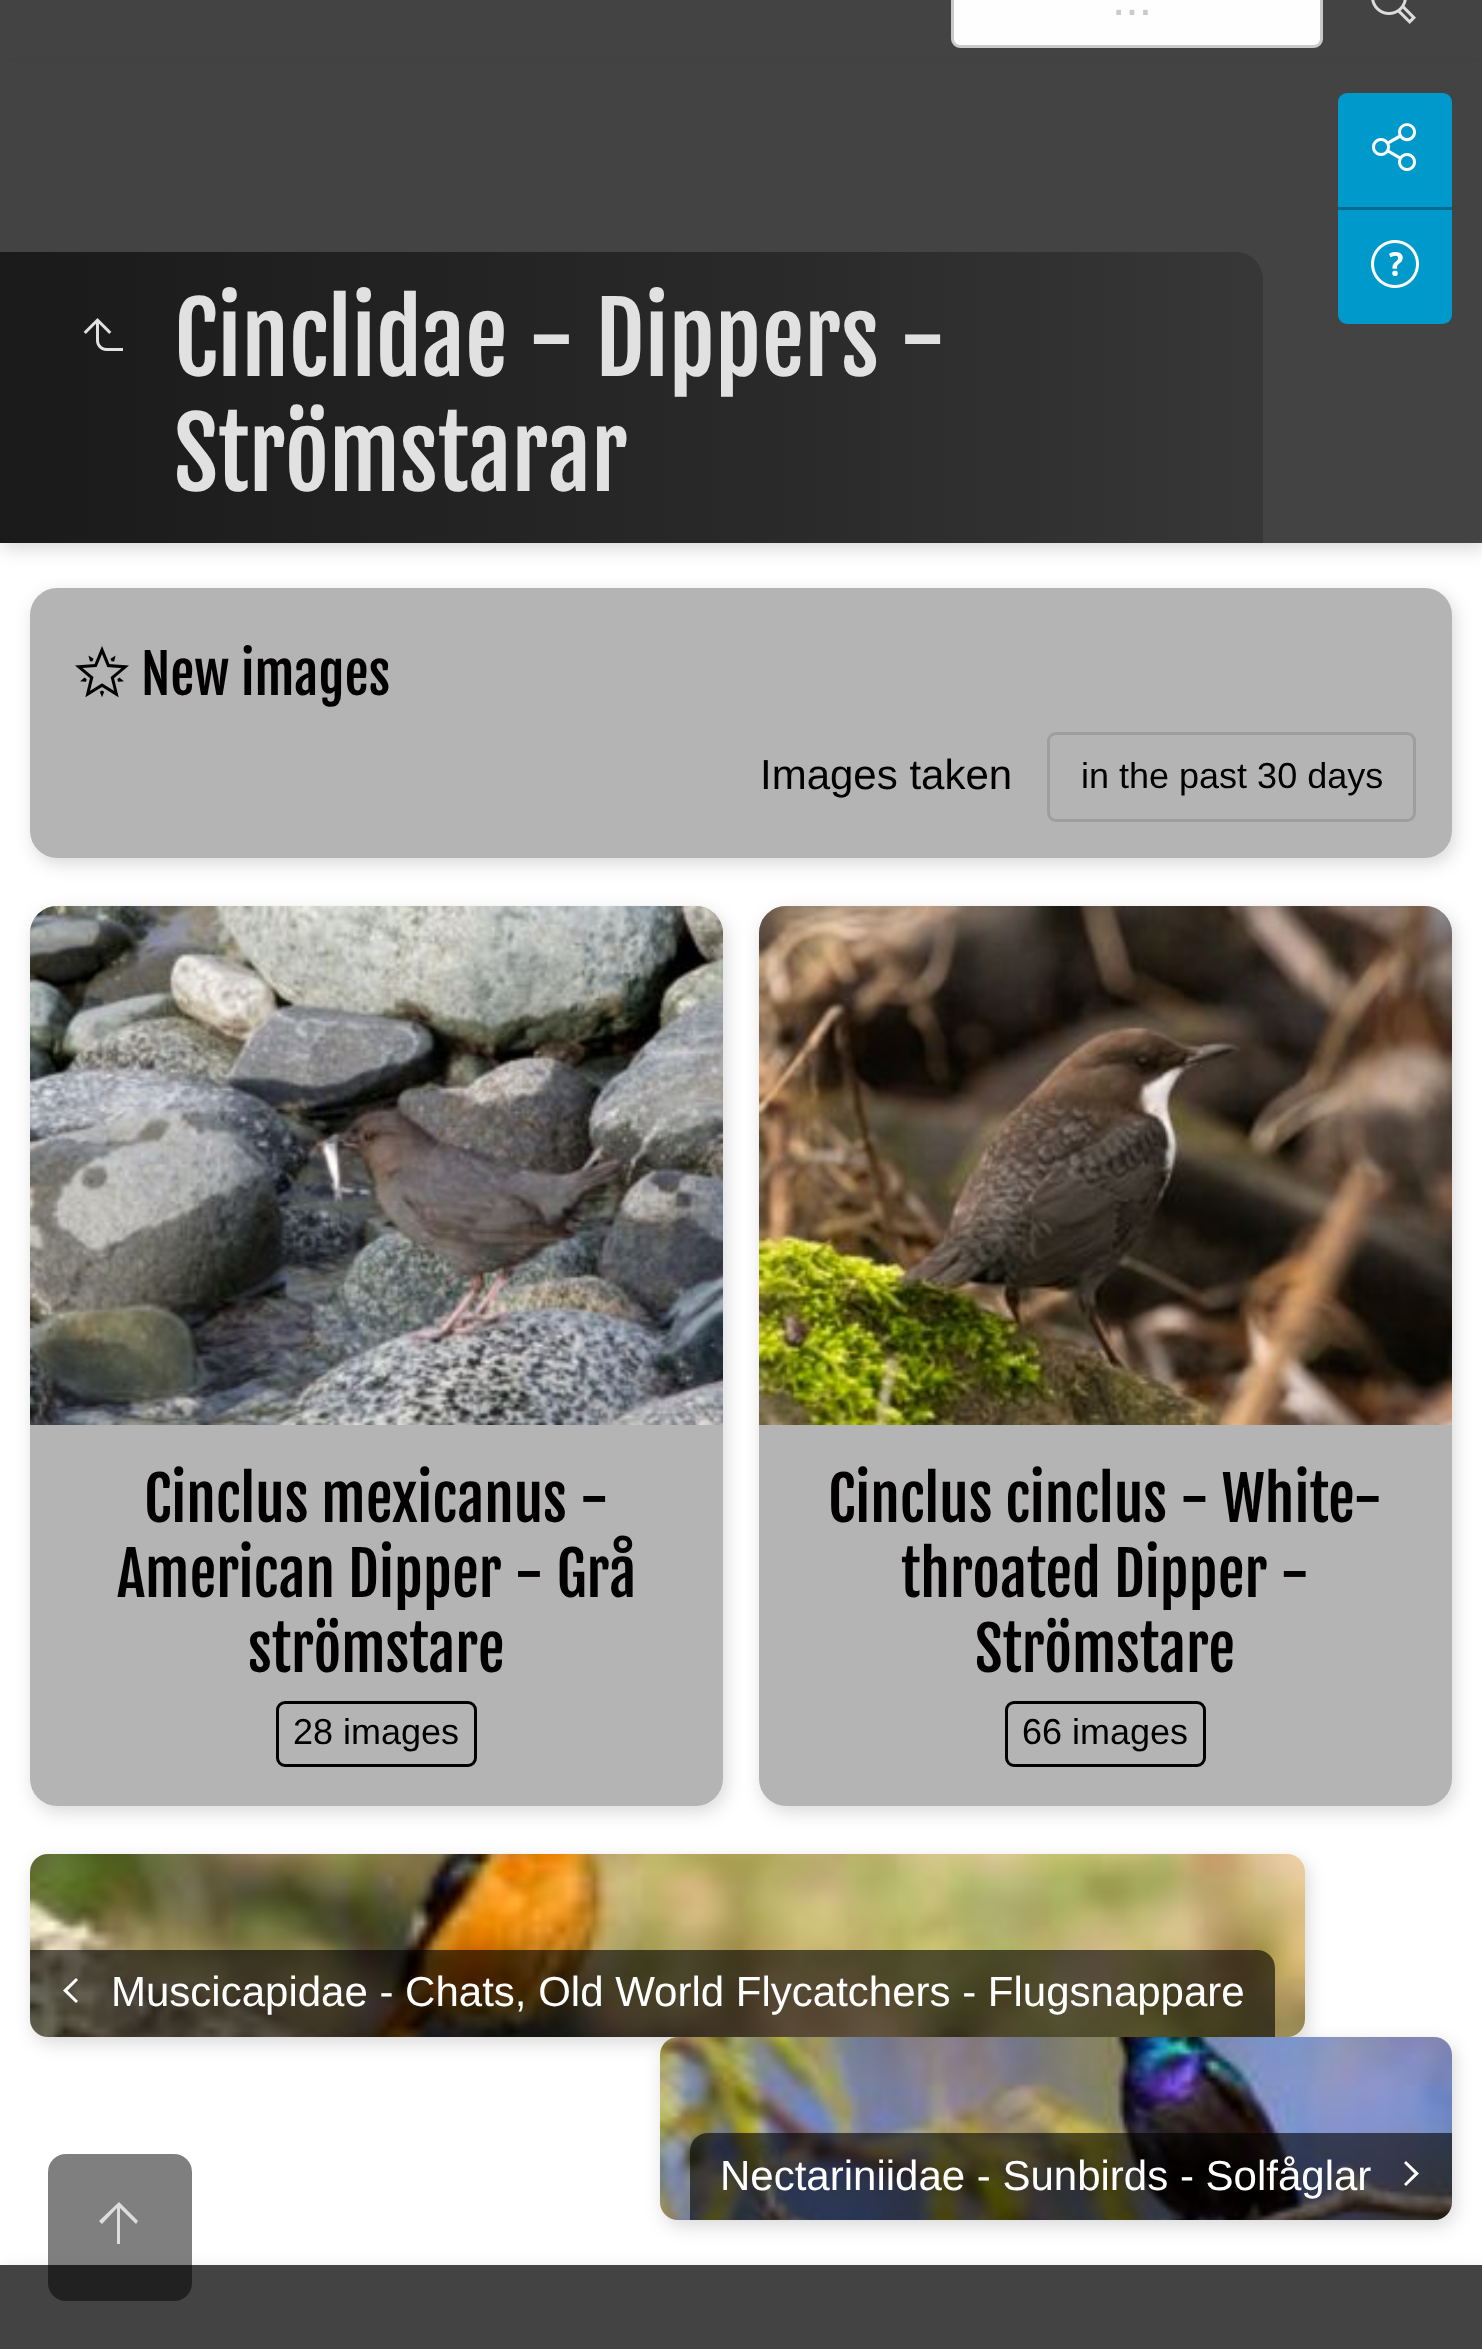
<!DOCTYPE html>
<meta charset="utf-8">
<style>body { margin: 0 } canvas { display: block }</style>
<canvas id="canvas" width="1482" height="2349"></canvas>
<img id="img1" src="images/1.png" hidden>
<img id="img2" src="images/2.png" hidden>
<img id="img3" src="images/3.png" hidden>
<img id="img4" src="images/4.png" hidden>
<img id="img5" src="images/5.png" hidden>
<img id="img6" src="images/6.png" hidden>
<img id="img7" src="images/7.png" hidden>
<img id="img8" src="images/8.png" hidden>
<img id="img9" src="images/9.png" hidden>
<script>
window.onload = function () {
    const canvas = document.getElementById('canvas');
    const context = canvas.getContext('2d');
    context.miterLimit = 4;
    context.fontKerning = 'normal';
    let gradient;

    context.fillStyle = 'rgb(255, 255, 255)';
    context.fillRect(0, 0, 1482, 2349);
    context.fillStyle = 'rgba(0, 0, 0, 0.15)';
    context.filter = 'blur(9px)';
    context.beginPath();
    context.rect(3, 69, 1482, 480);
    context.fill();
    context.filter = 'none';
    context.fillStyle = 'rgba(20, 20, 20, 0.8)';
    context.fillRect(0, 0, 1482, 63);
    context.fillStyle = 'rgb(254, 254, 254)';
    context.beginPath();
    context.roundRect(952.5, -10.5, 369, 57, 7.5);
    context.fill();
    context.strokeStyle = 'rgb(202, 202, 202)';
    context.lineWidth = 3;
    context.stroke();
    context.drawImage(document.getElementById('img1'), 1371, 0, 45, 24);
    context.fillStyle = 'rgb(67, 67, 67)';
    context.fillRect(0, 63, 1482, 480);
    context.fillStyle = 'rgb(0, 153, 204)';
    context.beginPath();
    context.roundRect(1338, 93, 114, 114, [9, 9, 0, 0]);
    context.fill();
    context.drawImage(document.getElementById('img2'), 1372, 123, 44, 48);
    context.beginPath();
    context.roundRect(1338, 207, 114, 117, [0, 0, 9, 9]);
    context.fill();
    context.fillStyle = 'rgb(0, 107, 143)';
    context.fillRect(1338, 207, 114, 3);
    context.drawImage(document.getElementById('img3'), 1371, 240, 48, 48);
    gradient = context.createLinearGradient(0, 398, 1263, 398);
    gradient.addColorStop(0, 'rgb(26, 26, 26)');
    gradient.addColorStop(0.6, 'rgb(41, 41, 41)');
    gradient.addColorStop(1, 'rgb(55, 55, 55)');
    context.fillStyle = gradient;
    context.beginPath();
    context.roundRect(0, 252, 1263, 291, [0, 27, 0, 0]);
    context.fill();
    context.drawImage(document.getElementById('img4'), 83, 318, 40, 33);
    context.save();
    context.beginPath();
    context.moveTo(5, 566);
    context.lineTo(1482, 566);
    context.lineTo(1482, 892);
    context.lineTo(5, 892);
    context.closePath();
    context.moveTo(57, 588);
    context.lineTo(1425, 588);
    context.bezierCurveTo(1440, 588, 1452, 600, 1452, 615);
    context.lineTo(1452, 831);
    context.bezierCurveTo(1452, 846, 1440, 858, 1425, 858);
    context.lineTo(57, 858);
    context.bezierCurveTo(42, 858, 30, 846, 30, 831);
    context.lineTo(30, 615);
    context.bezierCurveTo(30, 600, 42, 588, 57, 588);
    context.closePath();
    context.clip('evenodd');
    context.fillStyle = 'rgba(0, 0, 0, 0.15)';
    context.filter = 'blur(9px)';
    context.beginPath();
    context.roundRect(33, 594, 1422, 270, 27);
    context.fill();
    context.filter = 'none';
    context.restore();
    context.fillStyle = 'rgba(68, 68, 68, 0.4)';
    context.beginPath();
    context.roundRect(30, 588, 1422, 270, 27);
    context.fill();
    context.drawImage(document.getElementById('img5'), 75, 646, 54, 52);
    context.beginPath();
    context.roundRect(1048.5, 733.5, 366, 87, 7.5);
    context.strokeStyle = 'rgb(158, 158, 158)';
    context.stroke();
    context.save();
    context.beginPath();
    context.moveTo(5, 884);
    context.lineTo(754, 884);
    context.lineTo(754, 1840);
    context.lineTo(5, 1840);
    context.closePath();
    context.moveTo(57, 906);
    context.lineTo(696, 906);
    context.bezierCurveTo(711, 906, 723, 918, 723, 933);
    context.lineTo(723, 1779);
    context.bezierCurveTo(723, 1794, 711, 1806, 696, 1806);
    context.lineTo(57, 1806);
    context.bezierCurveTo(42, 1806, 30, 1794, 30, 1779);
    context.lineTo(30, 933);
    context.bezierCurveTo(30, 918, 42, 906, 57, 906);
    context.closePath();
    context.clip('evenodd');
    context.fillStyle = 'rgba(0, 0, 0, 0.15)';
    context.filter = 'blur(9px)';
    context.beginPath();
    context.roundRect(33, 912, 693, 900, 27);
    context.fill();
    context.filter = 'none';
    context.restore();
    context.beginPath();
    context.roundRect(30, 906, 693, 900, 27);
    context.fill();
    context.drawImage(document.getElementById('img6'), 30, 906, 693, 519);
    context.beginPath();
    context.roundRect(277.5, 1702.5, 198, 63, 7.5);
    context.strokeStyle = 'rgb(2, 0, 0)';
    context.stroke();
    context.save();
    context.beginPath();
    context.moveTo(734, 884);
    context.lineTo(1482, 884);
    context.lineTo(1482, 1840);
    context.lineTo(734, 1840);
    context.closePath();
    context.moveTo(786, 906);
    context.lineTo(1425, 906);
    context.bezierCurveTo(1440, 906, 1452, 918, 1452, 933);
    context.lineTo(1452, 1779);
    context.bezierCurveTo(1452, 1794, 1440, 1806, 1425, 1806);
    context.lineTo(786, 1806);
    context.bezierCurveTo(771, 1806, 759, 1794, 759, 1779);
    context.lineTo(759, 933);
    context.bezierCurveTo(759, 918, 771, 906, 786, 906);
    context.closePath();
    context.clip('evenodd');
    context.fillStyle = 'rgba(0, 0, 0, 0.15)';
    context.filter = 'blur(9px)';
    context.beginPath();
    context.roundRect(762, 912, 693, 900, 27);
    context.fill();
    context.filter = 'none';
    context.restore();
    context.beginPath();
    context.roundRect(759, 906, 693, 900, 27);
    context.fill();
    context.drawImage(document.getElementById('img7'), 759, 906, 693, 519);
    context.beginPath();
    context.roundRect(1006.5, 1702.5, 198, 63, 7.5);
    context.stroke();
    context.fillStyle = 'rgba(0, 0, 0, 0.15)';
    context.filter = 'blur(9px)';
    context.beginPath();
    context.roundRect(33, 1860, 1275, 183, 18);
    context.fill();
    context.filter = 'none';
    context.filter = 'blur(9px)';
    context.beginPath();
    context.roundRect(663, 2043, 792, 183, 18);
    context.fill();
    context.filter = 'none';
    context.drawImage(document.getElementById('img8'), 30, 1854, 1275, 183);
    context.fillStyle = 'rgba(0, 0, 0, 0.6)';
    context.beginPath();
    context.roundRect(30, 1950, 1245, 87, [0, 18, 0, 18]);
    context.fill();
    context.fillStyle = 'rgb(255, 255, 255)';
    context.beginPath();
    context.moveTo(76, 1978);
    context.lineTo(78, 1980);
    context.lineTo(67.5, 1990.5);
    context.lineTo(78, 2001);
    context.lineTo(76, 2003);
    context.lineTo(63, 1990.5);
    context.closePath();
    context.fill();
    context.drawImage(document.getElementById('img9'), 660, 2037, 792, 183);
    context.fillStyle = 'rgba(0, 0, 0, 0.6)';
    context.beginPath();
    context.roundRect(690, 2133, 762, 87, [18, 0, 18, 0]);
    context.fill();
    context.fillStyle = 'rgb(255, 255, 255)';
    context.beginPath();
    context.moveTo(1406, 2161);
    context.lineTo(1404, 2163);
    context.lineTo(1414.5, 2173.5);
    context.lineTo(1404, 2184);
    context.lineTo(1406, 2186);
    context.lineTo(1419, 2173.5);
    context.closePath();
    context.fill();
    context.fillStyle = 'rgba(0, 0, 0, 0.15)';
    context.filter = 'blur(9px)';
    context.beginPath();
    context.rect(3, 2271, 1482, 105);
    context.fill();
    context.filter = 'none';
    context.fillStyle = 'rgb(67, 67, 67)';
    context.fillRect(0, 2265, 1482, 84);
    context.fillStyle = 'rgba(0, 0, 0, 0.5)';
    context.beginPath();
    context.roundRect(48, 2154, 144, 147, 18);
    context.fill();
    context.fillStyle = 'rgb(221, 221, 221)';
    context.beginPath();
    context.moveTo(120, 2244);
    context.lineTo(120, 2208);
    context.lineTo(136, 2224);
    context.lineTo(138, 2221);
    context.lineTo(119, 2202);
    context.lineTo(99, 2221);
    context.lineTo(102, 2224);
    context.lineTo(117, 2208);
    context.lineTo(117, 2244);
    context.closePath();
    context.fill();
    context.font = '48px Liberation Sans';
    context.fillStyle = 'rgb(202, 202, 202)';
    context.fillText('...', 1112, 15);
    context.font = '96px Fjalla One';
    context.fillStyle = 'rgb(225, 225, 225)';
    context.fillText('Cinclidae - Dippers -', 174, 376);
    context.fillText('Strömstarar', 174, 491);
    context.font = '54px Fjalla One';
    context.fillStyle = 'rgb(2, 0, 0)';
    context.fillText('New images', 141, 695);
    context.font = '42px Liberation Sans';
    context.fillText('Images taken', 760, 789);
    context.font = '36px Liberation Sans';
    context.fillText('in the past 30 days', 1081, 788);
    context.font = '60px Fjalla One';
    context.fillText('Cinclus mexicanus -', 144, 1522);
    context.fillText('American Dipper - Grå', 117, 1597);
    context.fillText('strömstare', 248, 1672);
    context.font = '36px Liberation Sans';
    context.fillText('28 images', 293, 1744);
    context.font = '60px Fjalla One';
    context.fillText('Cinclus cinclus - White-', 828, 1522);
    context.fillText('throated Dipper -', 901, 1597);
    context.fillText('Strömstare', 975, 1672);
    context.font = '36px Liberation Sans';
    context.fillText('66 images', 1022, 1744);
    context.font = '42px Liberation Sans';
    context.fillStyle = 'rgb(255, 255, 255)';
    context.fillText('Muscicapidae - Chats, Old World Flycatchers - Flugsnappare', 111, 2006);
    context.fillText('Nectariniidae - Sunbirds - Solfåglar', 720, 2190);
};
</script>
